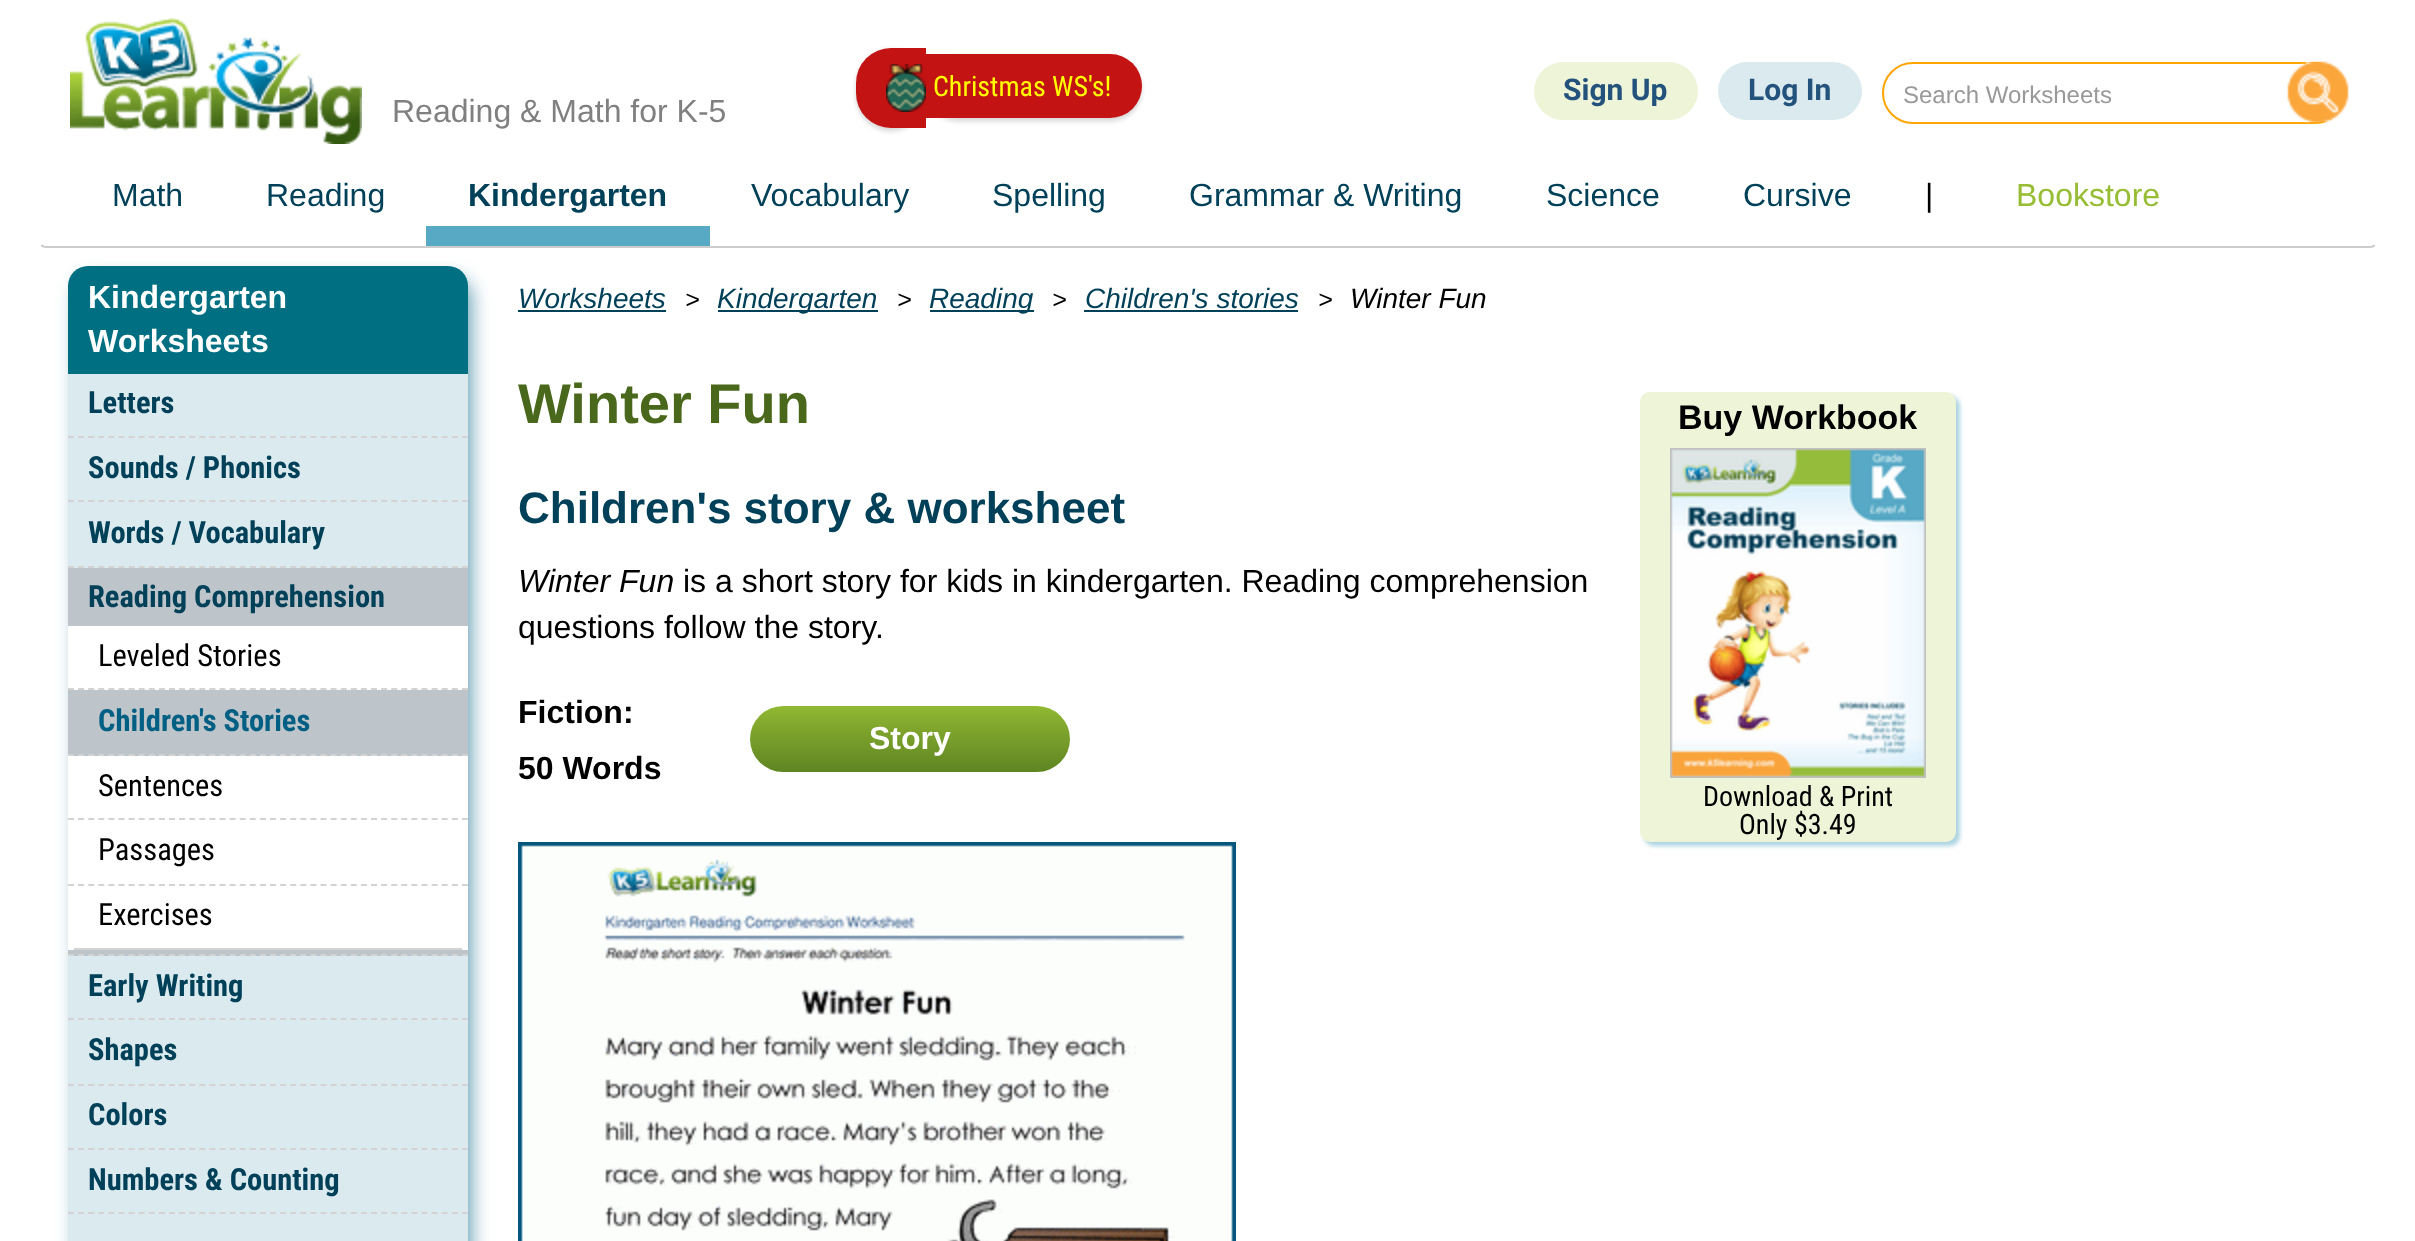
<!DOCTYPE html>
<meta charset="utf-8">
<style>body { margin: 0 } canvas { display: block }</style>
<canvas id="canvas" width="2415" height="1241"></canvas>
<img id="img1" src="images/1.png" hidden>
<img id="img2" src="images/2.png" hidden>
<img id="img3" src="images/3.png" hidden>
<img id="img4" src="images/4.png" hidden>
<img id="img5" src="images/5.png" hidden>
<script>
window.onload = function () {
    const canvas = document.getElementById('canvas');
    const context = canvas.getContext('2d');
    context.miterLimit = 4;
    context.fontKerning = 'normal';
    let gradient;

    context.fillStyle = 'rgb(255, 255, 255)';
    context.fillRect(0, 0, 2415, 1241);
    context.beginPath();
    context.moveTo(2375, 245);
    context.bezierCurveTo(2373.5, 246.5, 2372, 247, 2370, 247);
    context.lineTo(46, 247);
    context.bezierCurveTo(44, 247, 42.5, 246.5, 41, 245);
    context.strokeStyle = 'rgb(204, 204, 204)';
    context.lineWidth = 2;
    context.stroke();
    context.beginPath();
    context.moveTo(41, 245);
    context.bezierCurveTo(39.5, 243.5, 39, 242, 39, 240);
    context.lineTo(39, 8);
    context.bezierCurveTo(39, 6, 39.5, 4.5, 41, 3);
    context.bezierCurveTo(42.5, 1.5, 44, 1, 46, 1);
    context.lineTo(2370, 1);
    context.bezierCurveTo(2372, 1, 2373.5, 1.5, 2375, 3);
    context.bezierCurveTo(2376.5, 4.5, 2377, 6, 2377, 8);
    context.lineTo(2377, 240);
    context.bezierCurveTo(2377, 242, 2376.5, 243.5, 2375, 245);
    context.strokeStyle = 'rgb(255, 255, 255)';
    context.stroke();
    context.drawImage(document.getElementById('img1'), 70, 18, 292, 126);
    context.fillStyle = 'rgba(0, 0, 0, 0.12)';
    context.filter = 'blur(2px)';
    context.beginPath();
    context.roundRect(856, 52, 70, 80, 35);
    context.fill();
    context.filter = 'none';
    context.fillStyle = 'rgba(0, 0, 0, 0.06)';
    context.filter = 'blur(2px)';
    context.beginPath();
    context.roundRect(856, 48, 70, 80, 35);
    context.fill();
    context.filter = 'none';
    context.fillStyle = 'rgb(196, 19, 19)';
    context.beginPath();
    context.roundRect(856, 48, 70, 80, [35, 0, 0, 35]);
    context.fill();
    context.fillStyle = 'rgba(0, 0, 0, 0.12)';
    context.filter = 'blur(2px)';
    context.beginPath();
    context.roundRect(926, 58, 216, 64, 32);
    context.fill();
    context.filter = 'none';
    context.fillStyle = 'rgba(0, 0, 0, 0.06)';
    context.filter = 'blur(2px)';
    context.beginPath();
    context.roundRect(926, 54, 216, 64, 32);
    context.fill();
    context.filter = 'none';
    context.drawImage(document.getElementById('img2'), 886, 64, 40, 48);
    context.fillStyle = 'rgb(196, 19, 19)';
    context.beginPath();
    context.roundRect(926, 54, 216, 64, [0, 32, 32, 0]);
    context.fill();
    context.fillStyle = 'rgb(238, 244, 215)';
    context.beginPath();
    context.roundRect(1534, 62, 164, 58, 29);
    context.fill();
    context.fillStyle = 'rgb(219, 234, 238)';
    context.beginPath();
    context.roundRect(1718, 62, 144, 58, 29);
    context.fill();
    context.beginPath();
    context.roundRect(1883, 63, 462, 60, 30);
    context.strokeStyle = 'rgb(255, 165, 0)';
    context.stroke();
    context.drawImage(document.getElementById('img3'), 2287, 61, 62, 62);
    context.fillStyle = 'rgb(88, 170, 196)';
    context.fillRect(426, 226, 284, 20);
    context.fillStyle = 'rgba(0, 95, 130, 0.68)';
    context.filter = 'blur(10px)';
    context.beginPath();
    context.roundRect(78, 280, 392, 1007, 16);
    context.fill();
    context.filter = 'none';
    context.fillStyle = 'rgb(0, 111, 130)';
    context.beginPath();
    context.roundRect(68, 266, 400, 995, 20);
    context.fill();
    context.fillStyle = 'rgb(219, 234, 238)';
    context.fillRect(68, 374, 400, 194);
    context.beginPath();
    context.moveTo(68, 437);
    context.lineTo(468, 437);
    context.strokeStyle = 'rgb(211, 211, 211)';
    context.setLineDash([6, 4.1]);
    context.stroke();
    context.beginPath();
    context.moveTo(68, 501);
    context.lineTo(468, 501);
    context.stroke();
    context.beginPath();
    context.moveTo(68, 567);
    context.lineTo(468, 567);
    context.stroke();
    context.fillStyle = 'rgb(189, 196, 202)';
    context.fillRect(68, 568, 400, 388);
    context.beginPath();
    context.moveTo(68, 955);
    context.lineTo(468, 955);
    context.stroke();
    context.fillStyle = 'rgb(255, 255, 255)';
    context.fillRect(68, 626, 400, 324);
    context.beginPath();
    context.moveTo(68, 689);
    context.lineTo(468, 689);
    context.stroke();
    context.fillStyle = 'rgb(189, 196, 202)';
    context.fillRect(68, 690, 400, 66);
    context.beginPath();
    context.moveTo(68, 755);
    context.lineTo(468, 755);
    context.stroke();
    context.beginPath();
    context.moveTo(68, 819);
    context.lineTo(468, 819);
    context.stroke();
    context.beginPath();
    context.moveTo(68, 885);
    context.lineTo(468, 885);
    context.stroke();
    context.fillStyle = 'rgb(211, 211, 211)';
    context.fillRect(74, 948, 388, 2);
    context.fillStyle = 'rgb(219, 234, 238)';
    context.fillRect(68, 956, 400, 285);
    context.beginPath();
    context.moveTo(68, 1019);
    context.lineTo(468, 1019);
    context.stroke();
    context.beginPath();
    context.moveTo(68, 1085);
    context.lineTo(468, 1085);
    context.stroke();
    context.beginPath();
    context.moveTo(68, 1149);
    context.lineTo(468, 1149);
    context.stroke();
    context.beginPath();
    context.moveTo(68, 1213);
    context.lineTo(468, 1213);
    context.stroke();
    context.fillStyle = 'rgb(0, 65, 89)';
    context.fillRect(518, 310, 148, 2);
    context.fillRect(718, 310, 160, 2);
    context.fillRect(930, 310, 104, 2);
    context.fillRect(1084, 310, 214, 2);
    context.fillStyle = 'rgba(89, 170, 197, 0.5)';
    context.filter = 'blur(2px)';
    context.beginPath();
    context.roundRect(1644, 396, 316, 450, 10);
    context.fill();
    context.filter = 'none';
    context.fillStyle = 'rgb(238, 244, 215)';
    context.beginPath();
    context.roundRect(1640, 392, 316, 450, 10);
    context.fill();
    context.drawImage(document.getElementById('img4'), 1670, 448, 256, 330);
    gradient = context.createLinearGradient(910, 772, 910, 706);
    gradient.addColorStop(0, 'rgb(95, 133, 34)');
    gradient.addColorStop(0.09, 'rgb(99, 137, 36)');
    gradient.addColorStop(0.18, 'rgb(104, 142, 37)');
    gradient.addColorStop(0.27, 'rgb(108, 146, 39)');
    gradient.addColorStop(0.36, 'rgb(113, 151, 40)');
    gradient.addColorStop(0.45, 'rgb(117, 155, 41)');
    gradient.addColorStop(0.55, 'rgb(122, 160, 43)');
    gradient.addColorStop(0.64, 'rgb(126, 164, 44)');
    gradient.addColorStop(0.73, 'rgb(131, 169, 46)');
    gradient.addColorStop(0.82, 'rgb(136, 174, 48)');
    gradient.addColorStop(0.91, 'rgb(141, 180, 49)');
    gradient.addColorStop(1, 'rgb(146, 185, 51)');
    context.fillStyle = gradient;
    context.beginPath();
    context.roundRect(750, 706, 320, 66, 33);
    context.fill();
    context.drawImage(document.getElementById('img5'), 518, 842, 718, 399);
    context.font = '28px Roboto Condensed';
    context.fillStyle = 'rgb(255, 255, 0)';
    context.fillText('Christmas WS\'s!', 933, 96);
    context.font = 'bold 30px Roboto';
    context.fillStyle = 'rgb(35, 82, 124)';
    context.fillText('Sign Up', 1563, 100);
    context.fillText('Log In', 1748, 100);
    context.font = '24px Liberation Sans';
    context.fillStyle = 'rgb(153, 153, 153)';
    context.fillText('Search Worksheets', 1903, 103);
    context.font = '32px Liberation Sans';
    context.fillStyle = 'rgb(128, 128, 128)';
    context.fillText('Reading & Math for K-5', 392, 122);
    context.fillStyle = 'rgb(0, 65, 89)';
    context.fillText('Math', 112, 206);
    context.fillText('Reading', 266, 206);
    context.font = 'bold 32px Liberation Sans';
    context.fillText('Kindergarten', 468, 206);
    context.font = '32px Liberation Sans';
    context.fillText('Vocabulary', 751, 206);
    context.fillText('Spelling', 992, 206);
    context.fillText('Grammar & Writing', 1189, 206);
    context.fillText('Science', 1546, 206);
    context.fillText('Cursive', 1743, 206);
    context.fillStyle = 'rgb(0, 0, 0)';
    context.fillText('|', 1925, 206);
    context.fillStyle = 'rgb(150, 189, 51)';
    context.fillText('Bookstore', 2016, 206);
    context.font = 'bold 32px Liberation Sans';
    context.fillStyle = 'rgb(255, 255, 255)';
    context.fillText('Kindergarten', 88, 308);
    context.fillText('Worksheets', 88, 352);
    context.font = 'bold 30.5px Roboto Condensed';
    context.fillStyle = 'rgb(0, 65, 89)';
    context.fillText('Letters', 88, 413);
    context.fillText('Sounds / Phonics', 88, 478);
    context.fillText('Words / Vocabulary', 88, 543);
    context.fillText('Reading Comprehension', 88, 607);
    context.font = '30.5px Roboto Condensed';
    context.fillStyle = 'rgb(0, 0, 0)';
    context.fillText('Leveled Stories', 98, 666);
    context.font = 'bold 30.5px Roboto Condensed';
    context.fillStyle = 'rgb(0, 95, 130)';
    context.fillText('Children\'s Stories', 98, 731);
    context.font = '30.5px Roboto Condensed';
    context.fillStyle = 'rgb(0, 0, 0)';
    context.fillText('Sentences', 98, 796);
    context.fillText('Passages', 98, 860);
    context.fillText('Exercises', 98, 925);
    context.font = 'bold 30.5px Roboto Condensed';
    context.fillStyle = 'rgb(0, 65, 89)';
    context.fillText('Early Writing', 88, 996);
    context.fillText('Shapes', 88, 1060);
    context.fillText('Colors', 88, 1125);
    context.fillText('Numbers & Counting', 88, 1190);
    context.font = 'italic 28px Liberation Sans';
    context.fillText('Worksheets', 518, 308);
    context.font = 'italic 25px Liberation Sans';
    context.fillStyle = 'rgb(0, 0, 0)';
    context.fillText('>', 685, 308);
    context.font = 'italic 28px Liberation Sans';
    context.fillStyle = 'rgb(0, 65, 89)';
    context.fillText('Kindergarten', 717, 308);
    context.font = 'italic 25px Liberation Sans';
    context.fillStyle = 'rgb(0, 0, 0)';
    context.fillText('>', 897, 308);
    context.font = 'italic 28px Liberation Sans';
    context.fillStyle = 'rgb(0, 65, 89)';
    context.fillText('Reading', 929, 308);
    context.font = 'italic 25px Liberation Sans';
    context.fillStyle = 'rgb(0, 0, 0)';
    context.fillText('>', 1052, 308);
    context.font = 'italic 28px Liberation Sans';
    context.fillStyle = 'rgb(0, 65, 89)';
    context.fillText('Children\'s stories', 1085, 308);
    context.font = 'italic 25px Liberation Sans';
    context.fillStyle = 'rgb(0, 0, 0)';
    context.fillText('>', 1318, 308);
    context.font = 'italic 28px Liberation Sans';
    context.fillText('Winter Fun', 1350, 308);
    context.font = 'bold 56px Liberation Sans';
    context.fillStyle = 'rgb(74, 104, 27)';
    context.fillText('Winter Fun', 518, 423);
    context.font = 'bold 34px Liberation Sans';
    context.fillStyle = 'rgb(0, 0, 0)';
    context.fillText('Buy Workbook', 1678, 429);
    context.font = '28px Roboto Condensed';
    context.fillText('Download & Print', 1703, 806);
    context.fillText('Only $3.49', 1739, 834);
    context.font = 'bold 44px Liberation Sans';
    context.fillStyle = 'rgb(0, 65, 89)';
    context.fillText('Children\'s story & worksheet', 518, 523);
    context.font = 'italic 32px Liberation Sans';
    context.fillStyle = 'rgb(0, 0, 0)';
    context.fillText('Winter Fun', 518, 592);
    context.font = '32px Liberation Sans';
    context.fillText('is a short story for kids in kindergarten. Reading comprehension', 683, 592);
    context.fillText('questions follow the story.', 518, 638);
    context.font = 'bold 32px Liberation Sans';
    context.fillText('Fiction:', 518, 723);
    context.fillStyle = 'rgb(255, 255, 255)';
    context.fillText('Story', 869, 749);
    context.fillStyle = 'rgb(0, 0, 0)';
    context.fillText('50 Words', 518, 779);
};
</script>
